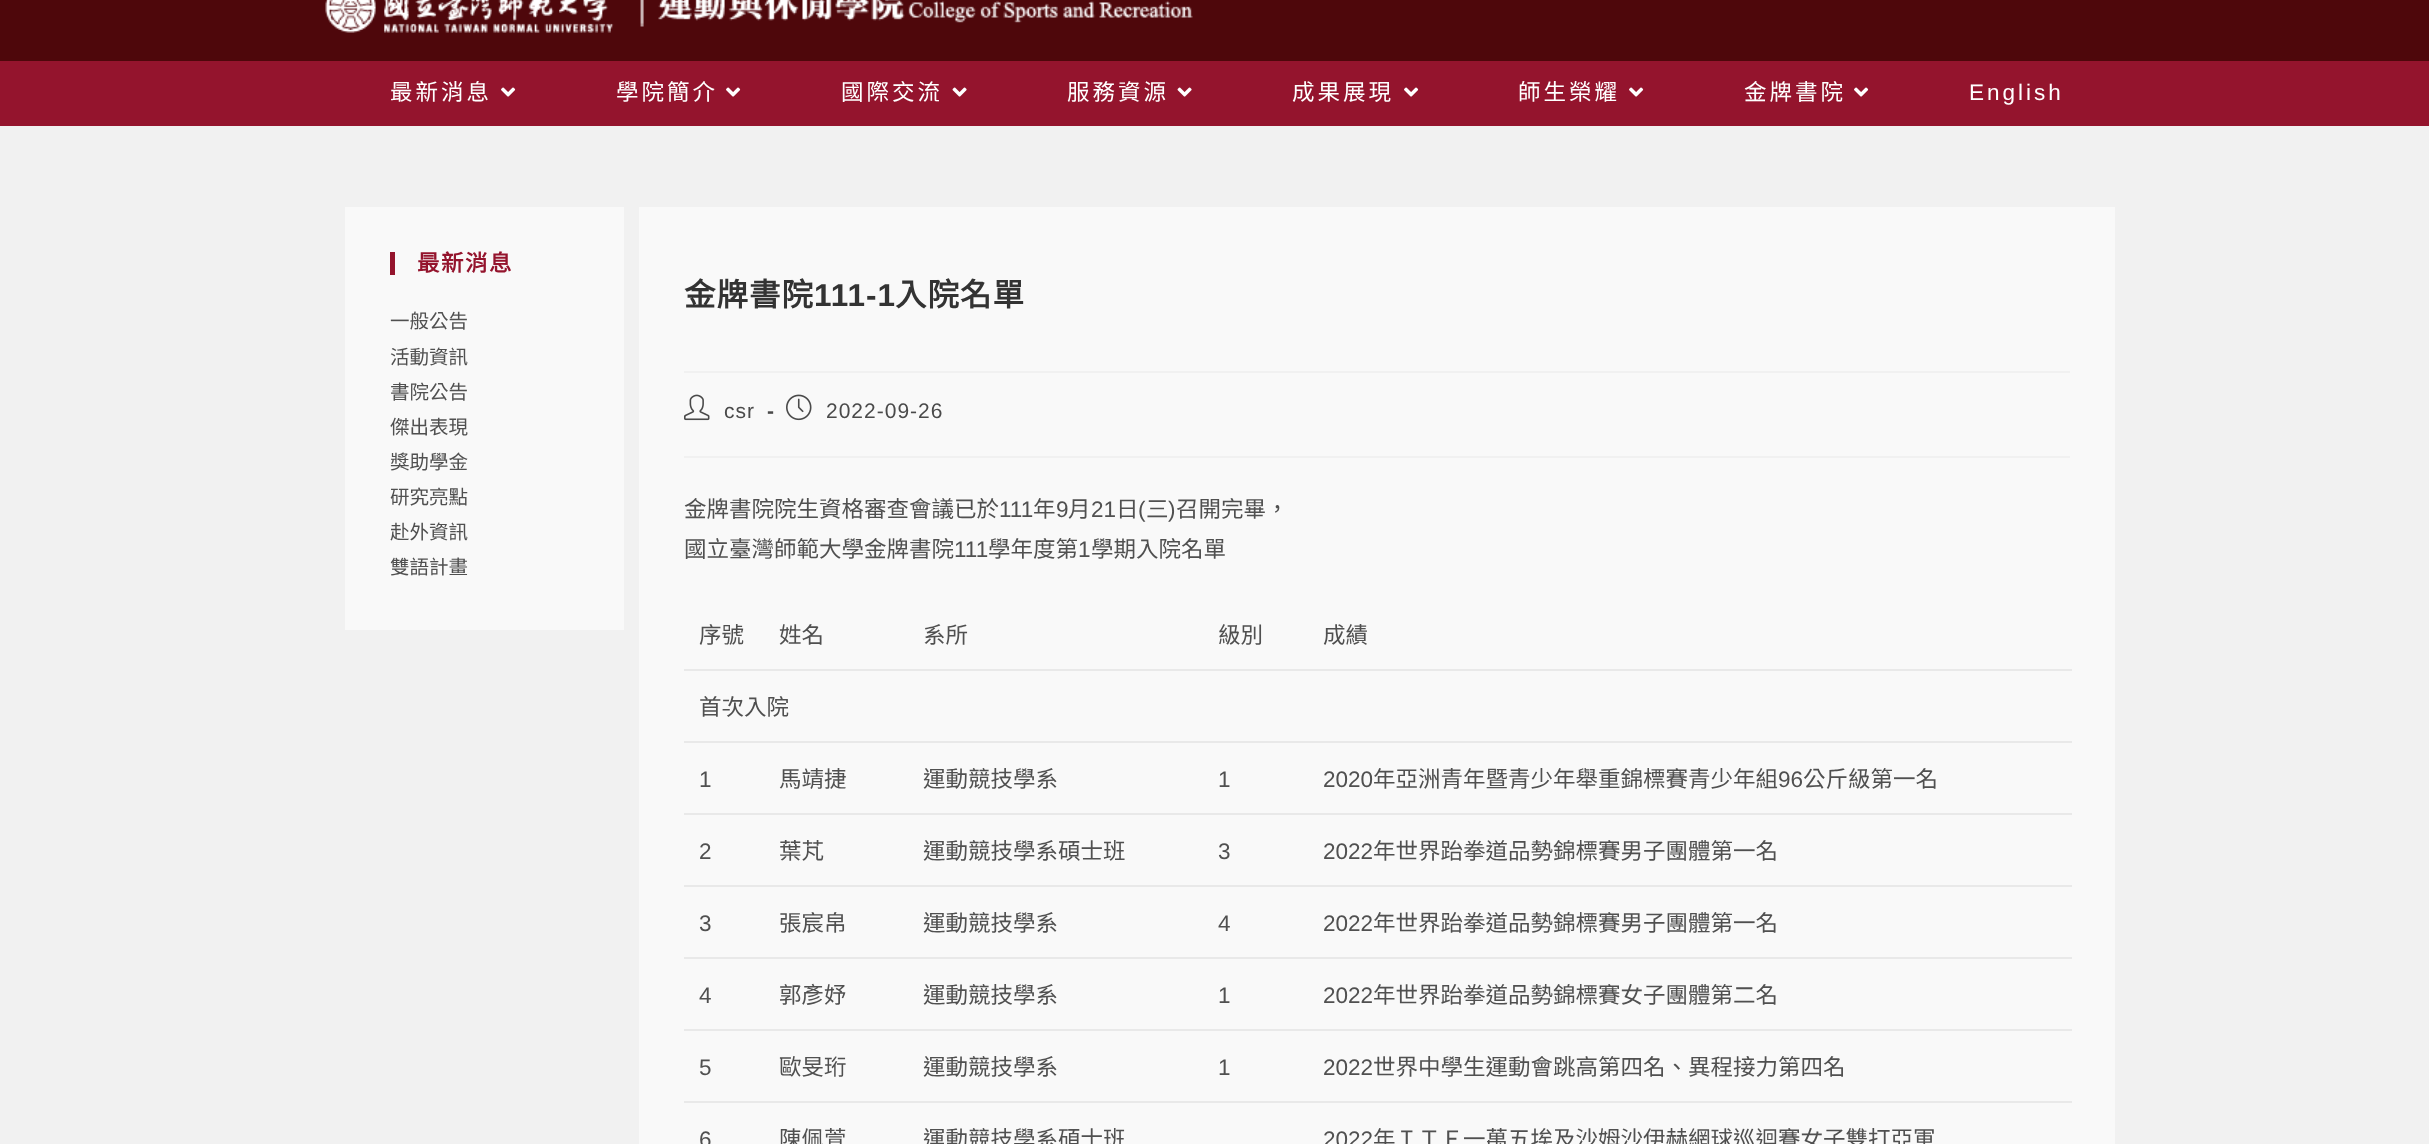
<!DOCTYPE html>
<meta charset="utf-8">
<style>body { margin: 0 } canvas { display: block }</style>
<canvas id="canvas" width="2429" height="1144"></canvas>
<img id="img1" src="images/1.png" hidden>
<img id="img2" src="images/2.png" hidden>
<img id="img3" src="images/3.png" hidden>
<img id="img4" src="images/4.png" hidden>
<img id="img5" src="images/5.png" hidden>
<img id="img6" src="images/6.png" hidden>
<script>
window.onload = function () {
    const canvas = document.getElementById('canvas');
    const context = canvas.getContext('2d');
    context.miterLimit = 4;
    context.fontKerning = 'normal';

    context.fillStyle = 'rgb(241, 241, 241)';
    context.fillRect(0, 0, 2429, 1144);
    context.fillStyle = 'rgb(78, 7, 11)';
    context.fillRect(0, 0, 2429, 61);
    context.drawImage(document.getElementById('img1'), 325, 0, 289, 33);
    context.drawImage(document.getElementById('img2'), 640, 0, 553, 27);
    context.fillStyle = 'rgb(148, 20, 45)';
    context.fillRect(0, 61, 2429, 65);
    context.drawImage(document.getElementById('img3'), 501, 87, 15, 10);
    context.drawImage(document.getElementById('img3'), 726, 87, 15, 10);
    context.drawImage(document.getElementById('img4'), 952, 87, 15, 10);
    context.drawImage(document.getElementById('img4'), 1177, 87, 15, 10);
    context.drawImage(document.getElementById('img3'), 1404, 87, 15, 10);
    context.drawImage(document.getElementById('img3'), 1629, 87, 15, 10);
    context.drawImage(document.getElementById('img3'), 1854, 87, 15, 10);
    context.fillStyle = 'rgb(249, 249, 249)';
    context.fillRect(345, 207, 279, 423);
    context.fillStyle = 'rgb(148, 20, 45)';
    context.fillRect(390, 252, 5, 23);
    context.fillStyle = 'rgb(249, 249, 249)';
    context.fillRect(639, 207, 1476, 937);
    context.fillStyle = 'rgb(241, 241, 241)';
    context.fillRect(684, 371, 1386, 2);
    context.fillRect(684, 456, 1386, 2);
    context.drawImage(document.getElementById('img5'), 684, 394, 26, 27);
    context.drawImage(document.getElementById('img6'), 786, 394, 26, 27);
    context.fillStyle = 'rgb(233, 233, 233)';
    context.fillRect(684, 669, 1388, 2);
    context.fillRect(684, 741, 1388, 2);
    context.fillRect(684, 813, 1388, 2);
    context.fillRect(684, 885, 1388, 2);
    context.fillRect(684, 957, 1388, 2);
    context.fillRect(684, 1029, 1388, 2);
    context.fillRect(684, 1101, 1388, 2);
    context.letterSpacing = '3px';
    context.font = '22.5px Noto Sans CJK TC';
    context.fillStyle = 'rgb(255, 255, 255)';
    context.fillText('最新消息', 390, 100);
    context.fillText('學院簡介', 616, 100);
    context.fillText('國際交流', 841, 100);
    context.fillText('服務資源', 1067, 100);
    context.fillText('成果展現', 1292, 100);
    context.fillText('師生榮耀', 1518, 100);
    context.fillText('金牌書院', 1744, 100);
    context.font = '22.5px Liberation Sans';
    context.fillText('English', 1969, 100);
    context.letterSpacing = '1.5px';
    context.font = 'bold 22.5px Noto Sans CJK TC';
    context.fillStyle = 'rgb(148, 20, 45)';
    context.fillText('最新消息', 417, 271);
    context.letterSpacing = '0px';
    context.font = '19.5px Noto Sans CJK TC';
    context.fillStyle = 'rgb(80, 80, 80)';
    context.fillText('一般公告', 390, 328);
    context.fillText('活動資訊', 390, 364);
    context.fillText('書院公告', 390, 399);
    context.fillText('傑出表現', 390, 434);
    context.fillText('獎助學金', 390, 469);
    context.fillText('研究亮點', 390, 504);
    context.fillText('赴外資訊', 390, 539);
    context.fillText('雙語計畫', 390, 574);
    context.letterSpacing = '1px';
    context.font = 'bold 31.5px Noto Sans CJK TC';
    context.fillStyle = 'rgb(51, 51, 51)';
    context.fillText('金牌書院', 684, 306);
    context.font = 'bold 31.5px Liberation Sans';
    context.fillText('111-1', 814, 306);
    context.font = 'bold 31.5px Noto Sans CJK TC';
    context.fillText('入院名單', 895, 306);
    context.font = '21px Liberation Sans';
    context.fillStyle = 'rgb(74, 74, 74)';
    context.fillText('csr', 724, 418);
    context.font = 'bold 21px Liberation Sans';
    context.fillText('-', 767, 418);
    context.font = '21px Liberation Sans';
    context.fillText('2022-09-26', 826, 418);
    context.letterSpacing = '0px';
    context.font = '22.5px Noto Sans CJK TC';
    context.fillStyle = 'rgb(80, 80, 80)';
    context.fillText('金牌書院院生資格審查會議已於', 684, 517);
    context.font = '22.5px Liberation Sans';
    context.fillText('111', 999, 517);
    context.font = '22.5px Noto Sans CJK TC';
    context.fillText('年', 1033, 517);
    context.font = '22.5px Liberation Sans';
    context.fillText('9', 1056, 517);
    context.font = '22.5px Noto Sans CJK TC';
    context.fillText('月', 1068, 517);
    context.font = '22.5px Liberation Sans';
    context.fillText('21', 1091, 517);
    context.font = '22.5px Noto Sans CJK TC';
    context.fillText('日', 1116, 517);
    context.font = '22.5px Liberation Sans';
    context.fillText('(', 1138, 517);
    context.font = '22.5px Noto Sans CJK TC';
    context.fillText('三', 1146, 517);
    context.font = '22.5px Liberation Sans';
    context.fillText(')', 1168, 517);
    context.font = '22.5px Noto Sans CJK TC';
    context.fillText('召開完畢，', 1176, 517);
    context.fillText('國立臺灣師範大學金牌書院', 684, 557);
    context.font = '22.5px Liberation Sans';
    context.fillText('111', 954, 557);
    context.font = '22.5px Noto Sans CJK TC';
    context.fillText('學年度第', 988, 557);
    context.font = '22.5px Liberation Sans';
    context.fillText('1', 1078, 557);
    context.font = '22.5px Noto Sans CJK TC';
    context.fillText('學期入院名單', 1091, 557);
    context.fillText('序號', 699, 643);
    context.fillText('姓名', 779, 643);
    context.fillText('系所', 923, 643);
    context.fillText('級別', 1218, 643);
    context.fillText('成績', 1323, 643);
    context.fillText('首次入院', 699, 715);
    context.font = '22.5px Liberation Sans';
    context.fillText('1', 699, 787);
    context.font = '22.5px Noto Sans CJK TC';
    context.fillText('馬靖捷', 779, 787);
    context.fillText('運動競技學系', 923, 787);
    context.font = '22.5px Liberation Sans';
    context.fillText('1', 1218, 787);
    context.fillText('2020', 1323, 787);
    context.font = '22.5px Noto Sans CJK TC';
    context.fillText('年亞洲青年暨青少年舉重錦標賽青少年組', 1373, 787);
    context.font = '22.5px Liberation Sans';
    context.fillText('96', 1778, 787);
    context.font = '22.5px Noto Sans CJK TC';
    context.fillText('公斤級第一名', 1803, 787);
    context.font = '22.5px Liberation Sans';
    context.fillText('2', 699, 859);
    context.font = '22.5px Noto Sans CJK TC';
    context.fillText('葉芃', 779, 859);
    context.fillText('運動競技學系碩士班', 923, 859);
    context.font = '22.5px Liberation Sans';
    context.fillText('3', 1218, 859);
    context.fillText('2022', 1323, 859);
    context.font = '22.5px Noto Sans CJK TC';
    context.fillText('年世界跆拳道品勢錦標賽男子團體第一名', 1373, 859);
    context.font = '22.5px Liberation Sans';
    context.fillText('3', 699, 931);
    context.font = '22.5px Noto Sans CJK TC';
    context.fillText('張宸帛', 779, 931);
    context.fillText('運動競技學系', 923, 931);
    context.font = '22.5px Liberation Sans';
    context.fillText('4', 1218, 931);
    context.fillText('2022', 1323, 931);
    context.font = '22.5px Noto Sans CJK TC';
    context.fillText('年世界跆拳道品勢錦標賽男子團體第一名', 1373, 931);
    context.font = '22.5px Liberation Sans';
    context.fillText('4', 699, 1003);
    context.font = '22.5px Noto Sans CJK TC';
    context.fillText('郭彥妤', 779, 1003);
    context.fillText('運動競技學系', 923, 1003);
    context.font = '22.5px Liberation Sans';
    context.fillText('1', 1218, 1003);
    context.fillText('2022', 1323, 1003);
    context.font = '22.5px Noto Sans CJK TC';
    context.fillText('年世界跆拳道品勢錦標賽女子團體第二名', 1373, 1003);
    context.font = '22.5px Liberation Sans';
    context.fillText('5', 699, 1075);
    context.font = '22.5px Noto Sans CJK TC';
    context.fillText('歐旻珩', 779, 1075);
    context.fillText('運動競技學系', 923, 1075);
    context.font = '22.5px Liberation Sans';
    context.fillText('1', 1218, 1075);
    context.fillText('2022', 1323, 1075);
    context.font = '22.5px Noto Sans CJK TC';
    context.fillText('世界中學生運動會跳高第四名、異程接力第四名', 1373, 1075);
    context.font = '22.5px Liberation Sans';
    context.fillText('6', 699, 1147);
    context.font = '22.5px Noto Sans CJK TC';
    context.fillText('陳佩萱', 779, 1147);
    context.fillText('運動競技學系碩士班', 923, 1147);
    context.font = '22.5px Liberation Sans';
    context.fillText('2022', 1323, 1147);
    context.font = '22.5px Noto Sans CJK TC';
    context.fillText('年ＩＴＦ一萬五埃及沙姆沙伊赫網球巡迴賽女子雙打亞軍', 1373, 1147);
};
</script>
